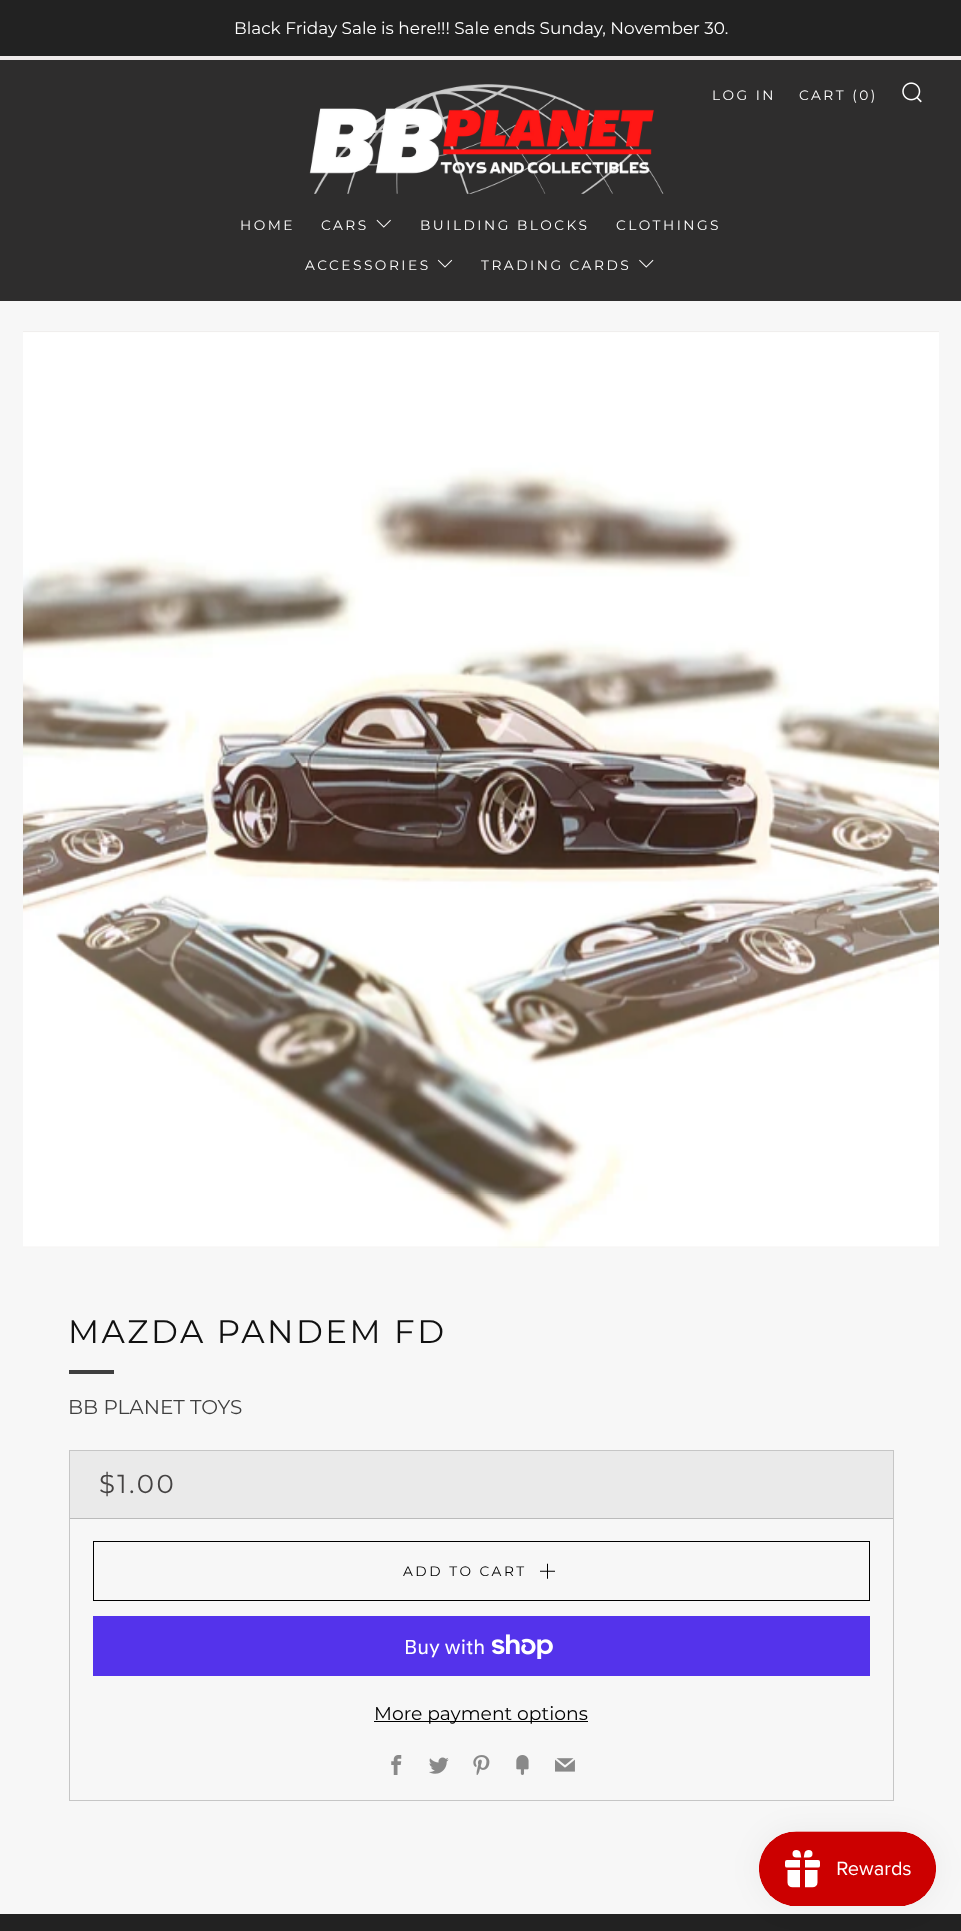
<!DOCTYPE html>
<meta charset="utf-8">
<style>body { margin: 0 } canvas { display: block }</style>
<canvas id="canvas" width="961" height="1931"></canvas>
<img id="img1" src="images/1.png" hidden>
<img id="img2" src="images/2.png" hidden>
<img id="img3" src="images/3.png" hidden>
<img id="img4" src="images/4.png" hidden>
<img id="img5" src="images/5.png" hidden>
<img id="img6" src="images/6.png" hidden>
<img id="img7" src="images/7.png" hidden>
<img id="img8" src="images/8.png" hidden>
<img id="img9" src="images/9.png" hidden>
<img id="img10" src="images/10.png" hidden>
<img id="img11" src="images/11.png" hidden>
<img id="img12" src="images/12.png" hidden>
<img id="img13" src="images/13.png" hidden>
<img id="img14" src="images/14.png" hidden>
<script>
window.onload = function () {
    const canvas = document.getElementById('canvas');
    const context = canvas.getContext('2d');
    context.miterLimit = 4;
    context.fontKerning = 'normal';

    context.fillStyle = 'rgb(247, 247, 247)';
    context.fillRect(0, 0, 961, 1931);
    context.fillStyle = 'rgb(34, 34, 34)';
    context.fillRect(0, 0, 961, 56);
    context.fillStyle = 'rgb(238, 235, 235)';
    context.fillRect(0, 56, 961, 4);
    context.fillStyle = 'rgb(46, 45, 45)';
    context.fillRect(0, 60, 961, 241);
    context.drawImage(document.getElementById('img1'), 309, 84, 355, 110);
    context.drawImage(document.getElementById('img2'), 902, 82, 20, 21);
    context.drawImage(document.getElementById('img3'), 376, 219, 15, 9);
    context.drawImage(document.getElementById('img4'), 437, 259, 16, 9);
    context.drawImage(document.getElementById('img5'), 639, 259, 15, 9);
    context.fillStyle = 'rgb(223, 219, 216)';
    context.fillRect(23, 331, 916, 917);
    context.drawImage(document.getElementById('img6'), 23, 331, 916, 917);
    context.fillStyle = 'rgb(63, 63, 63)';
    context.fillRect(69, 1370, 45, 4);
    context.strokeStyle = 'rgb(198, 198, 198)';
    context.strokeRect(69.5, 1450.5, 824, 350);
    context.fillStyle = 'rgb(234, 234, 234)';
    context.fillRect(70, 1451, 823, 67);
    context.fillStyle = 'rgb(187, 187, 187)';
    context.fillRect(70, 1518, 823, 1);
    context.strokeStyle = 'rgb(0, 0, 0)';
    context.strokeRect(93.5, 1541.5, 776, 59);
    context.drawImage(document.getElementById('img7'), 540, 1563, 15, 16);
    context.fillStyle = 'rgb(84, 51, 235)';
    context.fillRect(93, 1616, 777, 60);
    context.drawImage(document.getElementById('img8'), 491, 1634, 62, 25);
    context.fillStyle = 'rgb(0, 0, 0)';
    context.fillRect(374, 1721, 214, 1);
    context.drawImage(document.getElementById('img9'), 391, 1755, 11, 20);
    context.drawImage(document.getElementById('img10'), 429, 1757, 20, 17);
    context.drawImage(document.getElementById('img11'), 473, 1755, 17, 20);
    context.drawImage(document.getElementById('img12'), 516, 1755, 13, 20);
    context.drawImage(document.getElementById('img13'), 555, 1758, 20, 14);
    context.fillStyle = 'rgb(34, 34, 34)';
    context.fillRect(0, 1914, 961, 17);
    context.fillStyle = 'rgba(0, 0, 0, 0.05)';
    context.filter = 'blur(15.5px)';
    context.beginPath();
    context.roundRect(759, 1831, 177, 75, 37.5);
    context.fill();
    context.filter = 'none';
    context.drawImage(document.getElementById('img14'), 759, 1831, 177, 75);
    context.font = '16.9px Montserrat';
    context.fillStyle = 'rgb(255, 255, 255)';
    context.fillText('Black Friday Sale is here!!! Sale ends Sunday, November 30.', 234, 34);
    context.letterSpacing = '2.5px';
    context.font = '13.75px Montserrat';
    context.fillText('LOG IN', 712, 100);
    context.fillText('CART (0)', 799, 100);
    context.fillText('HOME', 240, 230);
    context.fillText('CARS', 321, 230);
    context.fillText('BUILDING BLOCKS', 420, 230);
    context.fillText('CLOTHINGS', 616, 230);
    context.fillText('ACCESSORIES', 305, 270);
    context.fillText('TRADING CARDS', 481, 270);
    context.font = '32.5px Montserrat';
    context.fillStyle = 'rgb(17, 17, 17)';
    context.fillText('MAZDA PANDEM FD', 68, 1343);
    context.letterSpacing = '0px';
    context.font = '20px Montserrat';
    context.fillStyle = 'rgb(63, 63, 63)';
    context.fillText('BB PLANET TOYS', 68, 1414);
    context.letterSpacing = '2.5px';
    context.font = '26px Montserrat';
    context.fillStyle = 'rgb(69, 67, 67)';
    context.fillText('$1.00', 99, 1493);
    context.font = '13.75px Montserrat';
    context.fillStyle = 'rgb(0, 0, 0)';
    context.fillText('ADD TO CART', 403, 1576);
    context.letterSpacing = '0px';
    context.font = '20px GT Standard';
    context.fillStyle = 'rgb(255, 255, 255)';
    context.fillText('Buy with', 404, 1654);
    context.font = '18.75px Montserrat';
    context.fillStyle = 'rgb(0, 0, 0)';
    context.fillText('More payment options', 374, 1720);
};
</script>
